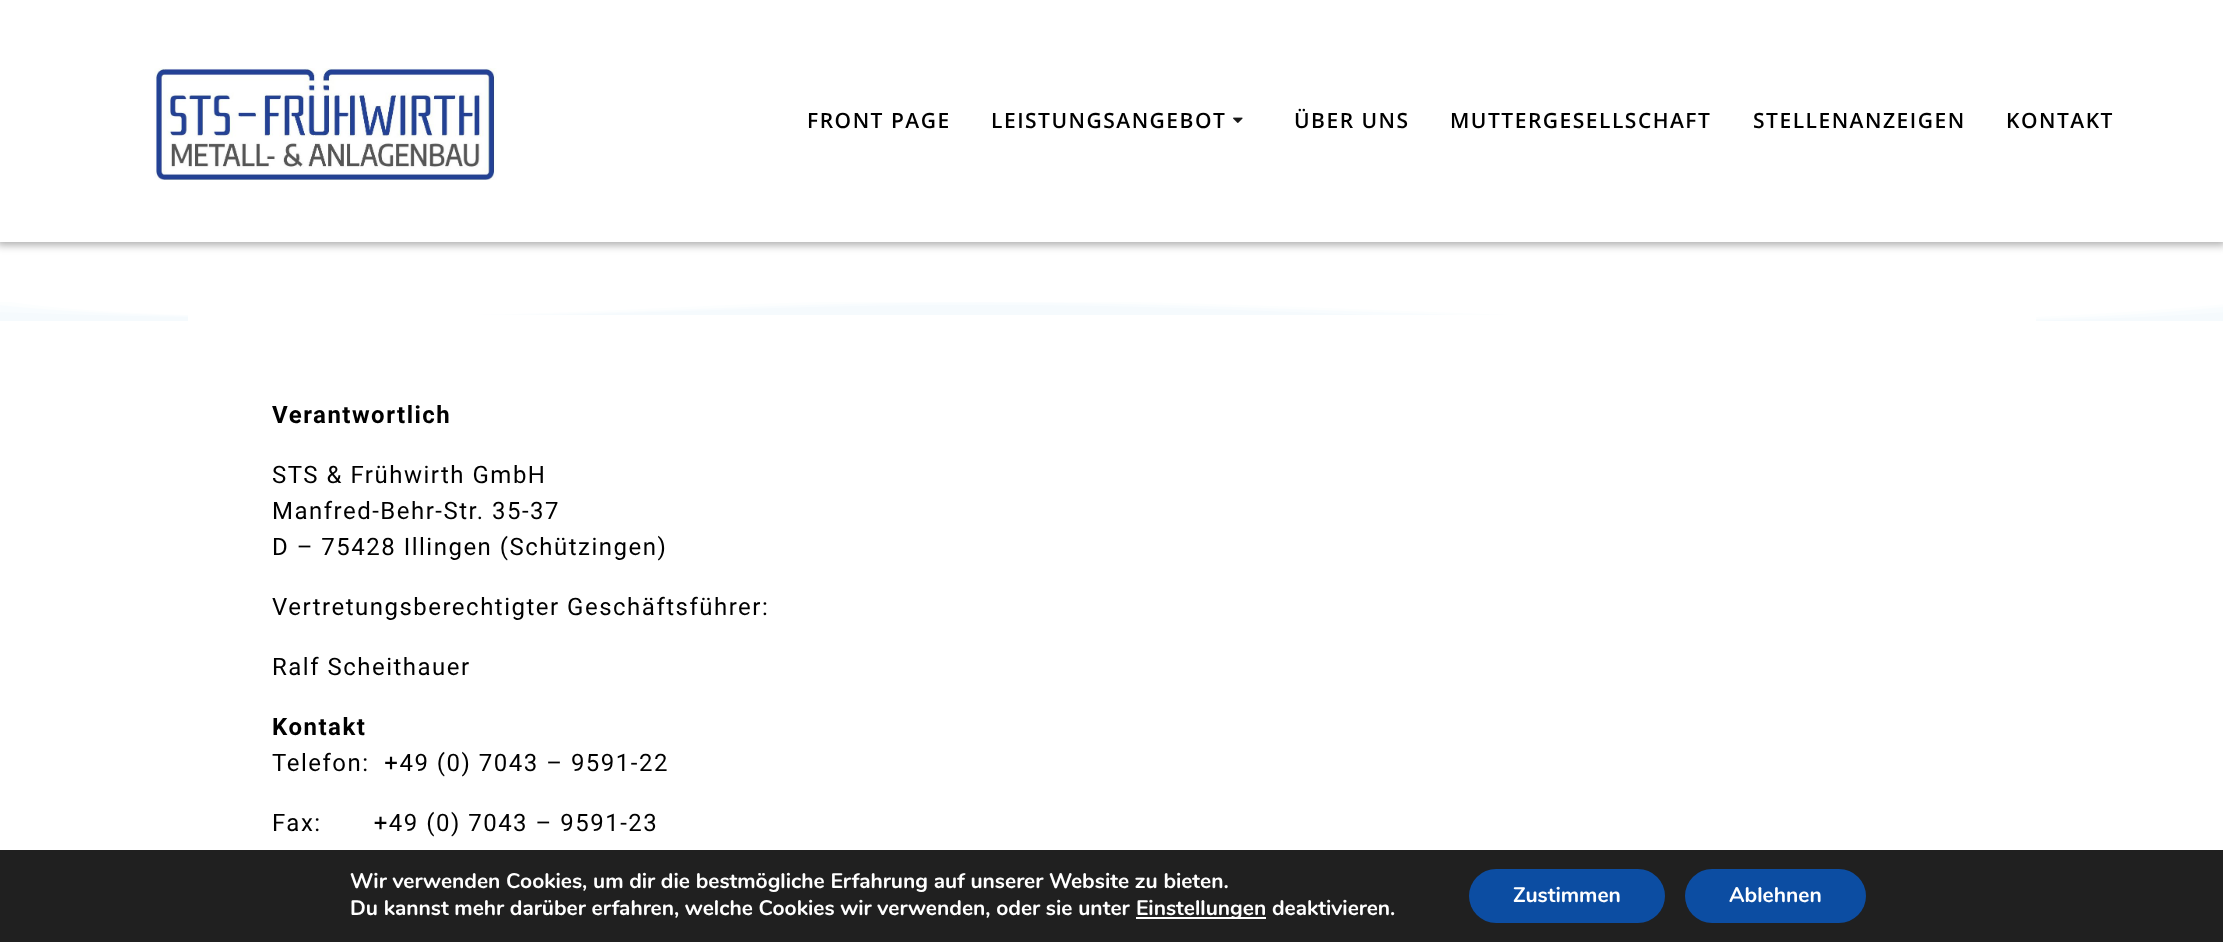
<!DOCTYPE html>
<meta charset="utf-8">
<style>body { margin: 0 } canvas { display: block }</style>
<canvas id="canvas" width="2223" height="942"></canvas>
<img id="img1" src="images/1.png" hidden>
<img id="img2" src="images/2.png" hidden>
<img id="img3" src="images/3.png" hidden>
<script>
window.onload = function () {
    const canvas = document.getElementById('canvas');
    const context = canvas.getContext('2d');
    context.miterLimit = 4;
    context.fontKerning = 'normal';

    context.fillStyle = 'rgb(255, 255, 255)';
    context.fillRect(0, 0, 2223, 942);
    context.fillStyle = 'rgba(0, 0, 0, 0.33)';
    context.filter = 'blur(4px)';
    context.beginPath();
    context.rect(-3, -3, 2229, 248);
    context.fill();
    context.filter = 'none';
    context.fillStyle = 'rgb(255, 255, 255)';
    context.fillRect(0, 0, 2223, 242);
    context.drawImage(document.getElementById('img1'), 154, 68, 343, 112);
    context.drawImage(document.getElementById('img2'), 1233, 117, 10, 6);
    context.drawImage(document.getElementById('img3'), 0, 302, 2223, 19);
    context.fillRect(188, 315, 1848, 6);
    context.fillStyle = 'rgb(32, 32, 32)';
    context.fillRect(0, 850, 2223, 92);
    context.fillStyle = 'rgb(255, 255, 255)';
    context.fillRect(1136, 917, 130, 2);
    context.fillStyle = 'rgb(12, 77, 162)';
    context.beginPath();
    context.roundRect(1469, 869, 196, 54, 27);
    context.fill();
    context.beginPath();
    context.roundRect(1685, 869, 181, 54, 27);
    context.fill();
    context.letterSpacing = '1.5px';
    context.font = '600 21px Open Sans';
    context.fillStyle = 'rgb(0, 0, 0)';
    context.fillText('FRONT PAGE', 807, 128);
    context.fillText('LEISTUNGSANGEBOT', 991, 128);
    context.fillText('ÜBER UNS', 1294, 128);
    context.fillText('MUTTERGESELLSCHAFT', 1450, 128);
    context.fillText('STELLENANZEIGEN', 1753, 128);
    context.fillText('KONTAKT', 2006, 128);
    context.font = 'bold 24px Roboto';
    context.fillText('Verantwortlich', 272, 423);
    context.font = '24px Roboto';
    context.fillText('STS & Frühwirth GmbH', 272, 483);
    context.fillText('Manfred-Behr-Str. 35-37', 272, 519);
    context.fillText('D – 75428 Illingen (Schützingen)', 272, 555);
    context.fillText('Vertretungsberechtigter Geschäftsführer:', 272, 615);
    context.fillText('Ralf Scheithauer', 272, 675);
    context.font = 'bold 24px Roboto';
    context.fillText('Kontakt', 272, 735);
    context.font = '24px Roboto';
    context.fillText('Telefon:  +49 (0) 7043 – 9591-22', 272, 771);
    context.fillText('Fax:       +49 (0) 7043 – 9591-23', 272, 831);
    context.letterSpacing = '0px';
    context.font = 'bold 21px Nunito';
    context.fillStyle = 'rgb(255, 255, 255)';
    context.fillText('Wir verwenden Cookies, um dir die bestmögliche Erfahrung auf unserer Website zu bieten.', 350, 888);
    context.fillText('Du kannst mehr darüber erfahren, welche Cookies wir verwenden, oder sie unter', 350, 915);
    context.fillText('Einstellungen deaktivieren.', 1136, 915);
    context.fillText('Zustimmen', 1513, 902);
    context.fillText('Ablehnen', 1729, 902);
};
</script>
